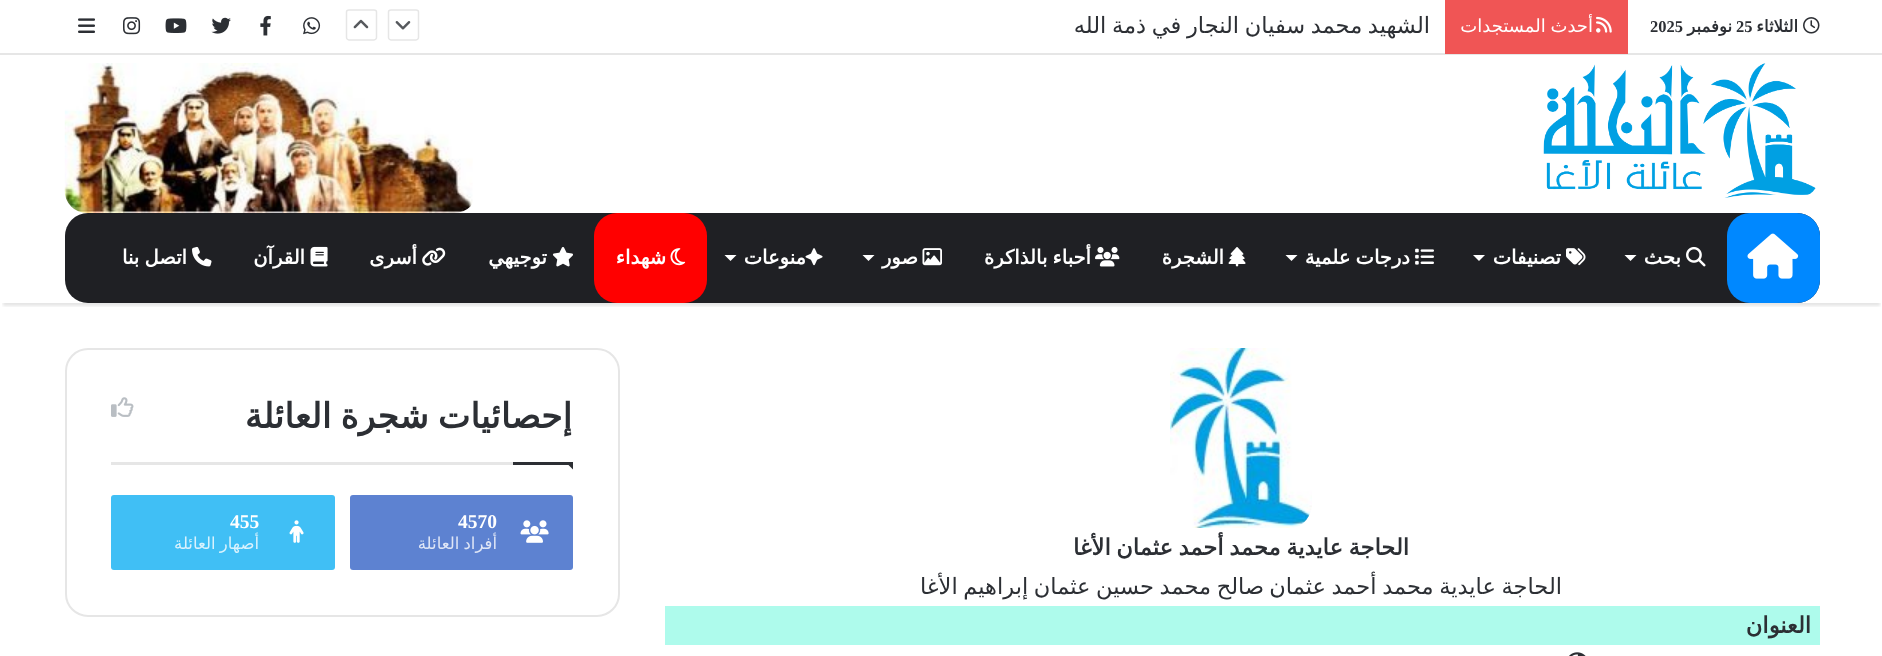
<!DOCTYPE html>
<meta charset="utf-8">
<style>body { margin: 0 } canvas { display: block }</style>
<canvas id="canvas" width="1882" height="656"></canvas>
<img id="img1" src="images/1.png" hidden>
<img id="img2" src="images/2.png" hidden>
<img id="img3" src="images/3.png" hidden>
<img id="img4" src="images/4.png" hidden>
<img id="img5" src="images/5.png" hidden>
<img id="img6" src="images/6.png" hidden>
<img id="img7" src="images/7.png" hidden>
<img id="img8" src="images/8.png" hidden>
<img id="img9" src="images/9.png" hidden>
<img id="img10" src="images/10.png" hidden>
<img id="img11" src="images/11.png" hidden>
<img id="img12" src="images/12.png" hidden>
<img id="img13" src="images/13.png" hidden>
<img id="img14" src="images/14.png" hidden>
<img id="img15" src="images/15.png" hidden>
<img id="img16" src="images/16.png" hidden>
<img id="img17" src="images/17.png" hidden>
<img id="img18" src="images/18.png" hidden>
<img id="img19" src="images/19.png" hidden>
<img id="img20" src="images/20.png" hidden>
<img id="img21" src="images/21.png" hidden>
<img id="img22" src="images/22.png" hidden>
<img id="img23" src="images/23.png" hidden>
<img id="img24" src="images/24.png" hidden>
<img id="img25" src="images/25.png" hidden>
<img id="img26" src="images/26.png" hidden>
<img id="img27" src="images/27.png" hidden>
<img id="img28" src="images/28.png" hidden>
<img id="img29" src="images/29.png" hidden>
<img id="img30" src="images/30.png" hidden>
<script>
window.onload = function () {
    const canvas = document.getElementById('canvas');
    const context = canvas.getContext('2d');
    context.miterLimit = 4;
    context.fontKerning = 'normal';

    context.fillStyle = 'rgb(255, 255, 255)';
    context.fillRect(0, 0, 1882, 656);
    context.save();
    context.beginPath();
    context.rect(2, 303, 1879, 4);
    context.clip();
    context.fillStyle = 'rgba(0, 0, 0, 0.1)';
    context.filter = 'blur(1.5px)';
    context.beginPath();
    context.rect(3, 9, 1877, 297);
    context.fill();
    context.filter = 'none';
    context.restore();
    context.fillStyle = 'rgb(230, 230, 230)';
    context.fillRect(0, 53, 1882, 2);
    context.drawImage(document.getElementById('img1'), 1803, 17, 17, 17);
    context.fillStyle = 'rgb(240, 85, 85)';
    context.fillRect(1445, 0, 183, 54);
    context.drawImage(document.getElementById('img2'), 1596, 16, 16, 17);
    context.beginPath();
    context.moveTo(416, 40);
    context.lineTo(391, 40);
    context.bezierCurveTo(389.5, 40, 388.5, 38.5, 388.5, 37.5);
    context.lineTo(388.5, 12);
    context.bezierCurveTo(388.5, 11, 389.5, 10, 391, 10);
    context.lineTo(416, 10);
    context.bezierCurveTo(417.5, 10, 418.5, 11, 418.5, 12);
    context.lineTo(418.5, 37.5);
    context.bezierCurveTo(418.5, 38.5, 417.5, 40, 416, 40);
    context.closePath();
    context.strokeStyle = 'rgb(230, 230, 230)';
    context.lineWidth = 1.5;
    context.stroke();
    context.drawImage(document.getElementById('img3'), 395, 21, 16, 9);
    context.beginPath();
    context.moveTo(374, 40);
    context.lineTo(349, 40);
    context.bezierCurveTo(347.5, 40, 346.5, 38.5, 346.5, 37.5);
    context.lineTo(346.5, 12);
    context.bezierCurveTo(346.5, 11, 347.5, 10, 349, 10);
    context.lineTo(374, 10);
    context.bezierCurveTo(375.5, 10, 376.5, 11, 376.5, 12);
    context.lineTo(376.5, 37.5);
    context.bezierCurveTo(376.5, 38.5, 375.5, 40, 374, 40);
    context.closePath();
    context.stroke();
    context.drawImage(document.getElementById('img4'), 353, 19, 16, 10);
    context.drawImage(document.getElementById('img5'), 303, 17, 18, 18);
    context.drawImage(document.getElementById('img6'), 260, 15, 11, 21);
    context.drawImage(document.getElementById('img7'), 211, 17, 20, 17);
    context.drawImage(document.getElementById('img8'), 165, 18, 22, 15);
    context.drawImage(document.getElementById('img9'), 123, 17, 18, 18);
    context.drawImage(document.getElementById('img10'), 78, 18, 17, 15);
    context.drawImage(document.getElementById('img11'), 1543, 63, 273, 135);
    context.drawImage(document.getElementById('img12'), 64, 63, 409, 150);
    context.fillStyle = 'rgb(31, 32, 36)';
    context.beginPath();
    context.roundRect(65, 213, 1755, 90, 23);
    context.fill();
    context.fillStyle = 'rgb(0, 136, 255)';
    context.beginPath();
    context.roundRect(1727, 213, 93, 90, 23);
    context.fill();
    context.drawImage(document.getElementById('img13'), 1747, 233, 52, 46);
    context.drawImage(document.getElementById('img14'), 1686, 246, 20, 21);
    context.fillStyle = 'rgb(255, 255, 255)';
    context.beginPath();
    context.moveTo(1624.5, 255);
    context.lineTo(1636.5, 255);
    context.lineTo(1630.5, 261);
    context.closePath();
    context.fill();
    context.drawImage(document.getElementById('img15'), 1566, 248, 20, 18);
    context.beginPath();
    context.moveTo(1473, 255);
    context.lineTo(1485, 255);
    context.lineTo(1479, 261);
    context.closePath();
    context.fill();
    context.drawImage(document.getElementById('img16'), 1415, 248, 19, 17);
    context.beginPath();
    context.moveTo(1285.5, 255);
    context.lineTo(1297.5, 255);
    context.lineTo(1291.5, 261);
    context.closePath();
    context.fill();
    context.drawImage(document.getElementById('img17'), 1228, 247, 18, 20);
    context.drawImage(document.getElementById('img18'), 1095, 246, 25, 21);
    context.drawImage(document.getElementById('img19'), 922, 248, 20, 18);
    context.beginPath();
    context.moveTo(862.5, 255);
    context.lineTo(874.5, 255);
    context.lineTo(868.5, 261);
    context.closePath();
    context.fill();
    context.drawImage(document.getElementById('img20'), 805, 248, 18, 18);
    context.beginPath();
    context.moveTo(724.5, 255);
    context.lineTo(736.5, 255);
    context.lineTo(730.5, 261);
    context.closePath();
    context.fill();
    context.fillStyle = 'rgb(255, 0, 0)';
    context.beginPath();
    context.roundRect(594, 213, 113, 90, 23);
    context.fill();
    context.drawImage(document.getElementById('img21'), 670, 248, 16, 18);
    context.drawImage(document.getElementById('img22'), 552, 247, 21, 20);
    context.drawImage(document.getElementById('img23'), 422, 247, 24, 19);
    context.drawImage(document.getElementById('img24'), 310, 246, 18, 21);
    context.drawImage(document.getElementById('img25'), 192, 246, 20, 21);
    context.beginPath();
    context.roundRect(66, 349, 553, 267, 22);
    context.lineWidth = 2;
    context.stroke();
    context.fillStyle = 'rgb(230, 230, 230)';
    context.fillRect(111, 462, 402, 3);
    context.drawImage(document.getElementById('img26'), 111, 397, 23, 20);
    context.fillStyle = 'rgb(44, 47, 52)';
    context.beginPath();
    context.moveTo(565.5, 462);
    context.lineTo(573, 462);
    context.lineTo(573, 469.5);
    context.closePath();
    context.fill();
    context.fillRect(513, 462, 60, 3);
    context.fillStyle = 'rgb(93, 130, 209)';
    context.beginPath();
    context.roundRect(350, 495, 223, 75, 3);
    context.fill();
    context.drawImage(document.getElementById('img27'), 520, 520, 29, 23);
    context.fillStyle = 'rgb(64, 191, 245)';
    context.beginPath();
    context.roundRect(111, 495, 224, 75, 3);
    context.fill();
    context.drawImage(document.getElementById('img28'), 289, 520, 15, 23);
    context.drawImage(document.getElementById('img29'), 1170, 348, 142, 180);
    context.fillStyle = 'rgb(174, 251, 236)';
    context.fillRect(665, 606, 1155, 39);
    context.drawImage(document.getElementById('img30'), 1569, 652, 17, 4);
    context.direction = 'rtl';
    context.font = 'bold 16.5px DejaVu Sans';
    context.fillStyle = 'rgb(44, 47, 52)';
    context.fillText('الثلاثاء', 1798, 32);
    context.direction = 'ltr';
    context.font = 'bold 16.5px Liberation Serif';
    context.fillText('25', 1736, 32);
    context.direction = 'rtl';
    context.font = 'bold 16.5px DejaVu Sans';
    context.fillText('نوفمبر', 1732, 32);
    context.direction = 'ltr';
    context.font = 'bold 16.5px Liberation Serif';
    context.fillText('2025', 1650, 32);
    context.wordSpacing = '-1px';
    context.direction = 'rtl';
    context.font = '18px DejaVu Sans';
    context.fillStyle = 'rgb(255, 255, 255)';
    context.fillText('أحدث المستجدات', 1593, 32);
    context.save();
    context.beginPath();
    context.rect(1074, 0, 356, 53);
    context.clip();
    context.wordSpacing = '-1.5px';
    context.font = '22.5px DejaVu Sans';
    context.fillStyle = 'rgb(44, 47, 52)';
    context.fillText('الشهيد محمد سفيان النجار في ذمة الله', 1430, 33);
    context.restore();
    context.wordSpacing = '0px';
    context.font = 'bold 19.5px DejaVu Sans';
    context.fillText('بحث', 1681, 264);
    context.fillText('تصنيفات', 1561, 264);
    context.wordSpacing = '-1px';
    context.fillText('درجات علمية', 1410, 264);
    context.wordSpacing = '0px';
    context.fillText('الشجرة', 1224, 264);
    context.wordSpacing = '-1px';
    context.fillText('أحباء بالذاكرة', 1091, 264);
    context.wordSpacing = '0px';
    context.fillText('صور', 918, 264);
    context.fillText('منوعات', 806, 264);
    context.fillText('شهداء', 666, 264);
    context.fillText('توجيهي', 547, 264);
    context.fillText('أسرى', 417, 264);
    context.fillText('القرآن', 305, 264);
    context.wordSpacing = '-1px';
    context.fillText('اتصل بنا', 187, 264);
    context.wordSpacing = '-2px';
    context.font = 'bold 34.5px DejaVu Sans';
    context.fillStyle = 'rgb(44, 47, 52)';
    context.fillText('إحصائيات شجرة العائلة', 572, 428);
    context.wordSpacing = '0px';
    context.direction = 'ltr';
    context.font = 'bold 19.5px Liberation Serif';
    context.fillStyle = 'rgb(255, 255, 255)';
    context.fillText('4570', 458, 528);
    context.wordSpacing = '-1px';
    context.direction = 'rtl';
    context.font = '16.5px DejaVu Sans';
    context.fillStyle = 'rgb(223, 230, 246)';
    context.fillText('أفراد العائلة', 497, 549);
    context.wordSpacing = '0px';
    context.direction = 'ltr';
    context.font = 'bold 19.5px Liberation Serif';
    context.fillStyle = 'rgb(255, 255, 255)';
    context.fillText('455', 230, 528);
    context.wordSpacing = '-1px';
    context.direction = 'rtl';
    context.font = '16.5px DejaVu Sans';
    context.fillStyle = 'rgb(217, 242, 253)';
    context.fillText('أصهار العائلة', 259, 549);
    context.wordSpacing = '-1.5px';
    context.font = 'bold 22.5px DejaVu Sans';
    context.fillStyle = 'rgb(44, 47, 52)';
    context.fillText('الحاجة عايدية محمد أحمد عثمان الأغا', 1409, 555);
    context.font = '22.5px DejaVu Sans';
    context.fillText('الحاجة عايدية محمد أحمد عثمان', 1562, 594);
    context.fillText('صالح محمد حسين عثمان إبراهيم الأغا', 1264, 594);
    context.wordSpacing = '0px';
    context.font = 'bold 22.5px DejaVu Sans';
    context.fillText('العنوان', 1811, 633);
};
</script>
